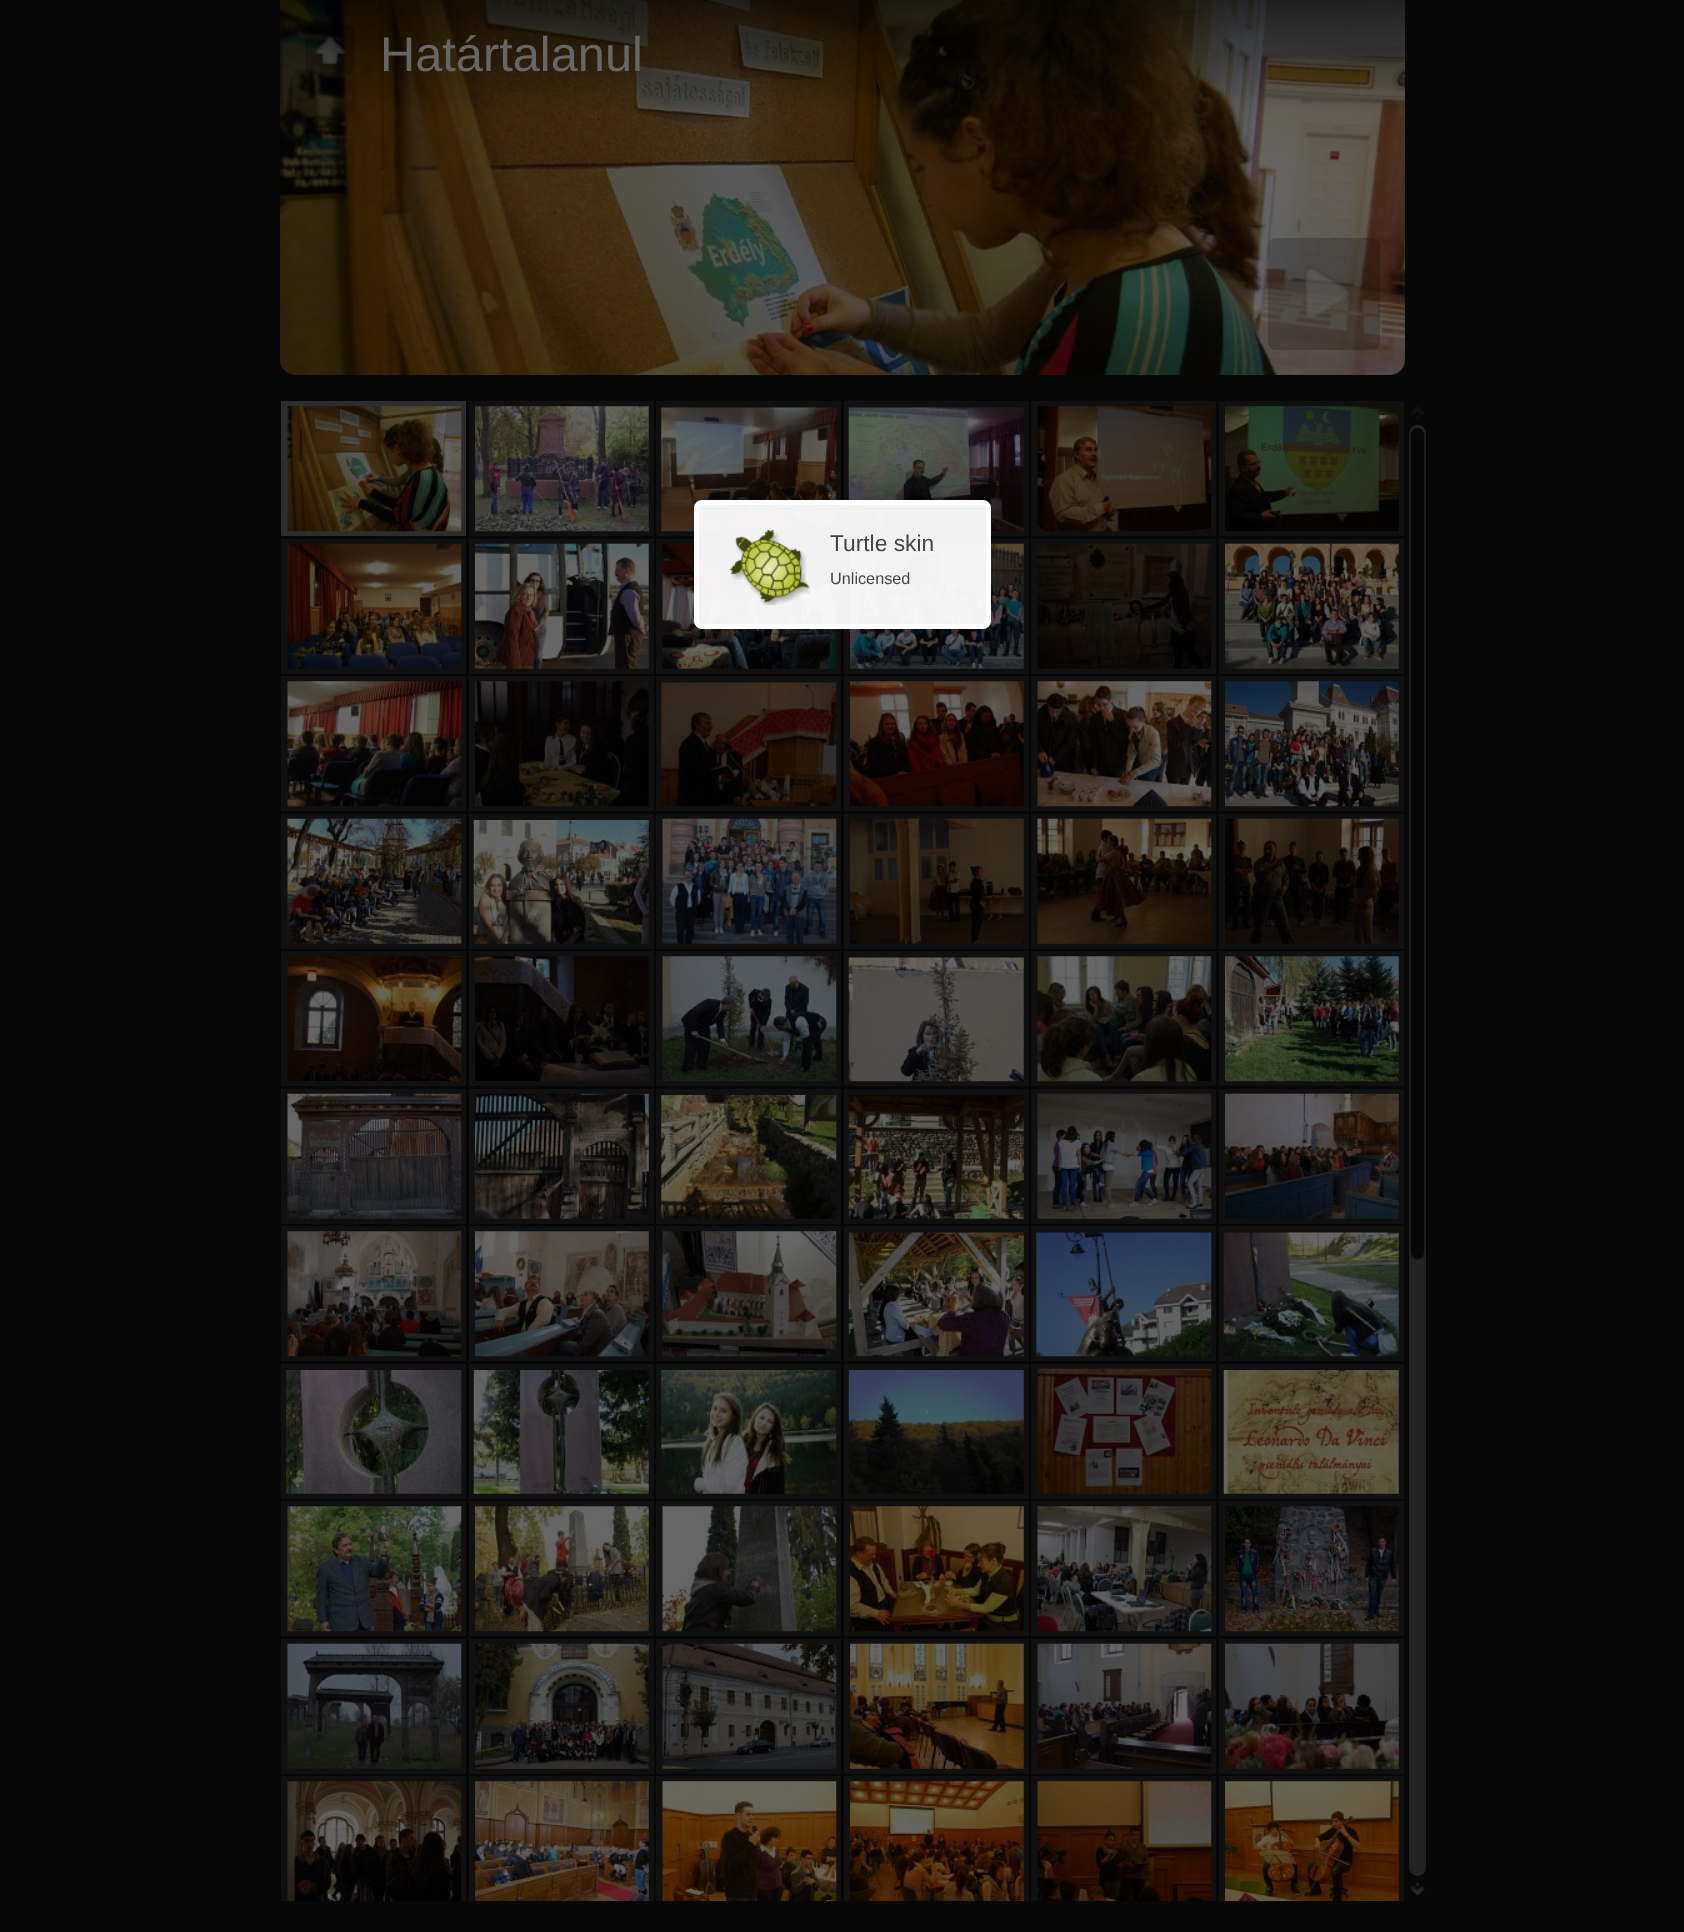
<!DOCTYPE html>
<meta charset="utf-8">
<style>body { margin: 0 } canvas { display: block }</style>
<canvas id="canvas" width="1684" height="1932"></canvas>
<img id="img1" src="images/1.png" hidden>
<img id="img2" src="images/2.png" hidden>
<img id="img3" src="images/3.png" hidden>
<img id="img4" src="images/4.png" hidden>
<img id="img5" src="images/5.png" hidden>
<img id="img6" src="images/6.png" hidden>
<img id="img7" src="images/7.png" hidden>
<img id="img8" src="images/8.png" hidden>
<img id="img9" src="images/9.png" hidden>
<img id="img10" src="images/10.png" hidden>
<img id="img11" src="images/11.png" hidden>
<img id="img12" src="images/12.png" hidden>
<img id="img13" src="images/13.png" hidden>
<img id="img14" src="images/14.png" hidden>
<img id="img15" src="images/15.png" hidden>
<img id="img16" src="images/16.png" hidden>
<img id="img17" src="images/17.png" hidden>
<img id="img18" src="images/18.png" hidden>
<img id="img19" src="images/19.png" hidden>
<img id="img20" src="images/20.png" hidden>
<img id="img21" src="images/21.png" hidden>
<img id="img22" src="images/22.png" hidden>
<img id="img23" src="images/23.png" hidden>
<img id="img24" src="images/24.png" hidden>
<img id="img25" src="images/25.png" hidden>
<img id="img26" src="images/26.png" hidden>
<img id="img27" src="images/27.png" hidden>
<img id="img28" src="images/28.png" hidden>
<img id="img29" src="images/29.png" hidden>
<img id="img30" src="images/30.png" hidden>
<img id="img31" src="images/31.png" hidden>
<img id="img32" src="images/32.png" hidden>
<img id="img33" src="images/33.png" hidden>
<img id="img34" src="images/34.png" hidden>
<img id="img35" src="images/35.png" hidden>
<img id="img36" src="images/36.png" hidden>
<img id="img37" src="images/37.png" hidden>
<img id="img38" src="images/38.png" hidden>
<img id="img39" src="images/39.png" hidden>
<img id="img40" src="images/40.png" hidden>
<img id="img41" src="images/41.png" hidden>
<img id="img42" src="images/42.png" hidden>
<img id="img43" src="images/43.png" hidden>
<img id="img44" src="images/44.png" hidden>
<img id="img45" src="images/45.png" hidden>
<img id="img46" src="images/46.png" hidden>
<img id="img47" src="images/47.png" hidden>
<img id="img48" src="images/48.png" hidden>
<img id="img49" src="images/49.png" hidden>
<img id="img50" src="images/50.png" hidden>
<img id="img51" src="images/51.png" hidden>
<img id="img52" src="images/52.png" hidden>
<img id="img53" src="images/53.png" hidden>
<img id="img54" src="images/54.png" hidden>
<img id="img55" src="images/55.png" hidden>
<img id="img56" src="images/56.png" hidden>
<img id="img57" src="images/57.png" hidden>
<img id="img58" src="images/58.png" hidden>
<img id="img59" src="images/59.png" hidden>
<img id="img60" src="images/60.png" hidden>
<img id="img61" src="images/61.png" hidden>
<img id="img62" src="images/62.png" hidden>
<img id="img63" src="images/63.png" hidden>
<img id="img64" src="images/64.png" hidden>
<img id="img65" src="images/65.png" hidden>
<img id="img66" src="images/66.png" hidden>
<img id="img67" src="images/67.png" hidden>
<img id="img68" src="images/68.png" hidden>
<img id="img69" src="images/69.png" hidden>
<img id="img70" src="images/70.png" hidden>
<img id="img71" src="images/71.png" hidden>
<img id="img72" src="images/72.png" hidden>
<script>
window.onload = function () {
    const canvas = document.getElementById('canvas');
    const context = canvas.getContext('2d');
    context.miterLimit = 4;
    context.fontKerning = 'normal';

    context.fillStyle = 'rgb(7, 7, 7)';
    context.fillRect(0, 0, 1684, 1932);
    context.fillStyle = 'rgb(0, 0, 0)';
    context.beginPath();
    context.roundRect(280, 0, 1125, 375, [0, 0, 15, 15]);
    context.fill();
    context.drawImage(document.getElementById('img1'), 280, 0, 1125, 375);
    context.fillStyle = 'rgba(0, 0, 0, 0.2)';
    context.beginPath();
    context.roundRect(305, 25, 50, 50, 8);
    context.fill();
    context.drawImage(document.getElementById('img2'), 315, 36, 31, 28);
    context.beginPath();
    context.roundRect(1268, 238, 112, 112, 8);
    context.fill();
    context.drawImage(document.getElementById('img3'), 1305, 266, 45, 53);
    context.fillStyle = 'rgb(45, 45, 45)';
    context.fillRect(281, 401, 185, 135);
    context.drawImage(document.getElementById('img4'), 287, 406, 175, 126);
    context.fillStyle = 'rgb(16, 16, 16)';
    context.fillRect(469, 401, 185, 135);
    context.drawImage(document.getElementById('img5'), 475, 406, 174, 126);
    context.fillRect(656, 401, 185, 135);
    context.drawImage(document.getElementById('img6'), 661, 407, 176, 125);
    context.fillRect(844, 401, 185, 135);
    context.drawImage(document.getElementById('img7'), 848, 407, 176, 125);
    context.fillRect(1031, 401, 185, 135);
    context.drawImage(document.getElementById('img8'), 1037, 406, 175, 126);
    context.fillRect(1219, 401, 185, 135);
    context.drawImage(document.getElementById('img9'), 1225, 406, 174, 126);
    context.fillRect(281, 539, 185, 135);
    context.drawImage(document.getElementById('img10'), 287, 543, 175, 126);
    context.fillRect(469, 539, 185, 135);
    context.drawImage(document.getElementById('img11'), 475, 543, 174, 126);
    context.fillRect(656, 539, 185, 135);
    context.drawImage(document.getElementById('img12'), 662, 543, 175, 126);
    context.fillRect(844, 539, 185, 135);
    context.drawImage(document.getElementById('img13'), 850, 543, 174, 126);
    context.fillRect(1031, 539, 185, 135);
    context.drawImage(document.getElementById('img14'), 1037, 543, 175, 126);
    context.fillRect(1219, 539, 185, 135);
    context.drawImage(document.getElementById('img15'), 1225, 543, 174, 126);
    context.fillRect(281, 676, 185, 135);
    context.drawImage(document.getElementById('img16'), 287, 681, 175, 126);
    context.fillRect(469, 676, 185, 135);
    context.drawImage(document.getElementById('img17'), 475, 681, 174, 126);
    context.fillRect(656, 676, 185, 135);
    context.drawImage(document.getElementById('img18'), 661, 682, 176, 125);
    context.fillRect(844, 676, 185, 135);
    context.drawImage(document.getElementById('img19'), 850, 681, 174, 126);
    context.fillRect(1031, 676, 185, 135);
    context.drawImage(document.getElementById('img20'), 1037, 681, 175, 126);
    context.fillRect(1219, 676, 185, 135);
    context.drawImage(document.getElementById('img21'), 1225, 681, 174, 126);
    context.fillRect(281, 814, 185, 135);
    context.drawImage(document.getElementById('img22'), 287, 818, 175, 126);
    context.fillRect(469, 814, 185, 135);
    context.drawImage(document.getElementById('img23'), 473, 820, 176, 124);
    context.fillRect(656, 814, 185, 135);
    context.drawImage(document.getElementById('img24'), 662, 818, 175, 126);
    context.fillRect(844, 814, 185, 135);
    context.drawImage(document.getElementById('img25'), 850, 818, 174, 126);
    context.fillRect(1031, 814, 185, 135);
    context.drawImage(document.getElementById('img26'), 1037, 818, 175, 126);
    context.fillRect(1219, 814, 185, 135);
    context.drawImage(document.getElementById('img27'), 1225, 818, 174, 126);
    context.fillRect(281, 951, 185, 135);
    context.drawImage(document.getElementById('img28'), 287, 956, 175, 126);
    context.fillRect(469, 951, 185, 135);
    context.drawImage(document.getElementById('img29'), 475, 956, 174, 126);
    context.fillRect(656, 951, 185, 135);
    context.drawImage(document.getElementById('img30'), 662, 956, 175, 126);
    context.fillRect(844, 951, 185, 135);
    context.drawImage(document.getElementById('img31'), 848, 957, 176, 125);
    context.fillRect(1031, 951, 185, 135);
    context.drawImage(document.getElementById('img32'), 1037, 956, 175, 126);
    context.fillRect(1219, 951, 185, 135);
    context.drawImage(document.getElementById('img33'), 1225, 956, 174, 126);
    context.fillRect(281, 1089, 185, 135);
    context.drawImage(document.getElementById('img34'), 287, 1093, 175, 126);
    context.fillRect(469, 1089, 185, 135);
    context.drawImage(document.getElementById('img35'), 475, 1093, 174, 126);
    context.fillRect(656, 1089, 185, 135);
    context.drawImage(document.getElementById('img36'), 661, 1095, 176, 124);
    context.fillRect(844, 1089, 185, 135);
    context.drawImage(document.getElementById('img37'), 848, 1095, 176, 124);
    context.fillRect(1031, 1089, 185, 135);
    context.drawImage(document.getElementById('img38'), 1037, 1093, 175, 126);
    context.fillRect(1219, 1089, 185, 135);
    context.drawImage(document.getElementById('img39'), 1225, 1093, 174, 126);
    context.fillRect(281, 1226, 185, 135);
    context.drawImage(document.getElementById('img40'), 287, 1231, 175, 126);
    context.fillRect(469, 1226, 185, 135);
    context.drawImage(document.getElementById('img41'), 475, 1231, 174, 126);
    context.fillRect(656, 1226, 185, 135);
    context.drawImage(document.getElementById('img42'), 662, 1231, 175, 126);
    context.fillRect(844, 1226, 185, 135);
    context.drawImage(document.getElementById('img43'), 848, 1232, 176, 125);
    context.fillRect(1031, 1226, 185, 135);
    context.drawImage(document.getElementById('img44'), 1036, 1232, 176, 125);
    context.fillRect(1219, 1226, 185, 135);
    context.drawImage(document.getElementById('img45'), 1223, 1232, 176, 125);
    context.fillRect(281, 1364, 185, 135);
    context.drawImage(document.getElementById('img46'), 286, 1370, 176, 124);
    context.fillRect(469, 1364, 185, 135);
    context.drawImage(document.getElementById('img47'), 473, 1370, 176, 124);
    context.fillRect(656, 1364, 185, 135);
    context.drawImage(document.getElementById('img48'), 661, 1370, 176, 124);
    context.fillRect(844, 1364, 185, 135);
    context.drawImage(document.getElementById('img49'), 848, 1370, 176, 124);
    context.fillRect(1031, 1364, 185, 135);
    context.drawImage(document.getElementById('img50'), 1037, 1368, 175, 126);
    context.fillRect(1219, 1364, 185, 135);
    context.drawImage(document.getElementById('img51'), 1223, 1370, 176, 124);
    context.fillRect(281, 1501, 185, 135);
    context.drawImage(document.getElementById('img52'), 287, 1506, 175, 126);
    context.fillRect(469, 1501, 185, 135);
    context.drawImage(document.getElementById('img53'), 475, 1506, 174, 126);
    context.fillRect(656, 1501, 185, 135);
    context.drawImage(document.getElementById('img54'), 662, 1506, 175, 126);
    context.fillRect(844, 1501, 185, 135);
    context.drawImage(document.getElementById('img55'), 850, 1506, 174, 126);
    context.fillRect(1031, 1501, 185, 135);
    context.drawImage(document.getElementById('img56'), 1037, 1506, 175, 126);
    context.fillRect(1219, 1501, 185, 135);
    context.drawImage(document.getElementById('img57'), 1225, 1506, 174, 126);
    context.fillRect(281, 1639, 185, 135);
    context.drawImage(document.getElementById('img58'), 287, 1643, 175, 126);
    context.fillRect(469, 1639, 185, 135);
    context.drawImage(document.getElementById('img59'), 475, 1643, 174, 126);
    context.fillRect(656, 1639, 185, 135);
    context.drawImage(document.getElementById('img60'), 662, 1643, 175, 126);
    context.fillRect(844, 1639, 185, 135);
    context.drawImage(document.getElementById('img61'), 850, 1643, 174, 126);
    context.fillRect(1031, 1639, 185, 135);
    context.drawImage(document.getElementById('img62'), 1037, 1643, 175, 126);
    context.fillRect(1219, 1639, 185, 135);
    context.drawImage(document.getElementById('img63'), 1225, 1643, 174, 126);
    context.fillRect(281, 1776, 185, 125);
    context.drawImage(document.getElementById('img64'), 287, 1781, 175, 121);
    context.fillRect(469, 1776, 185, 125);
    context.drawImage(document.getElementById('img65'), 475, 1781, 174, 121);
    context.fillRect(656, 1776, 185, 125);
    context.drawImage(document.getElementById('img66'), 662, 1781, 175, 121);
    context.fillRect(844, 1776, 185, 125);
    context.drawImage(document.getElementById('img67'), 850, 1781, 174, 121);
    context.fillRect(1031, 1776, 185, 125);
    context.drawImage(document.getElementById('img68'), 1037, 1781, 175, 121);
    context.fillRect(1219, 1776, 185, 125);
    context.drawImage(document.getElementById('img69'), 1225, 1781, 174, 121);
    context.drawImage(document.getElementById('img70'), 1410, 406, 15, 13);
    context.fillStyle = 'rgb(35, 35, 35)';
    context.beginPath();
    context.roundRect(1409, 425, 17, 1451, 8.5);
    context.fill();
    context.fillStyle = 'rgba(0, 0, 0, 0.4)';
    context.filter = 'blur(1px)';
    context.beginPath();
    context.roundRect(1411, 429, 13, 831, 6.5);
    context.fill();
    context.filter = 'none';
    context.fillStyle = 'rgb(7, 7, 7)';
    context.beginPath();
    context.roundRect(1411, 428, 13, 831, 6.5);
    context.fill();
    context.drawImage(document.getElementById('img71'), 1410, 1882, 15, 14);
    context.fillStyle = 'rgba(255, 255, 255, 0.95)';
    context.beginPath();
    context.roundRect(696.5, 502.5, 292, 124, 5.5);
    context.fill();
    context.strokeStyle = 'rgb(255, 255, 255)';
    context.lineWidth = 5;
    context.stroke();
    context.drawImage(document.getElementById('img72'), 730, 530, 80, 75);
    context.font = '48.75px Liberation Sans';
    context.fillStyle = 'rgb(102, 102, 102)';
    context.fillText('Határtalanul', 380, 71);
    context.font = '22.75px Liberation Sans';
    context.fillStyle = 'rgb(68, 68, 68)';
    context.fillText('Turtle skin', 830, 551);
    context.font = '16.25px Liberation Sans';
    context.fillText('Unlicensed', 830, 584);
};
</script>
